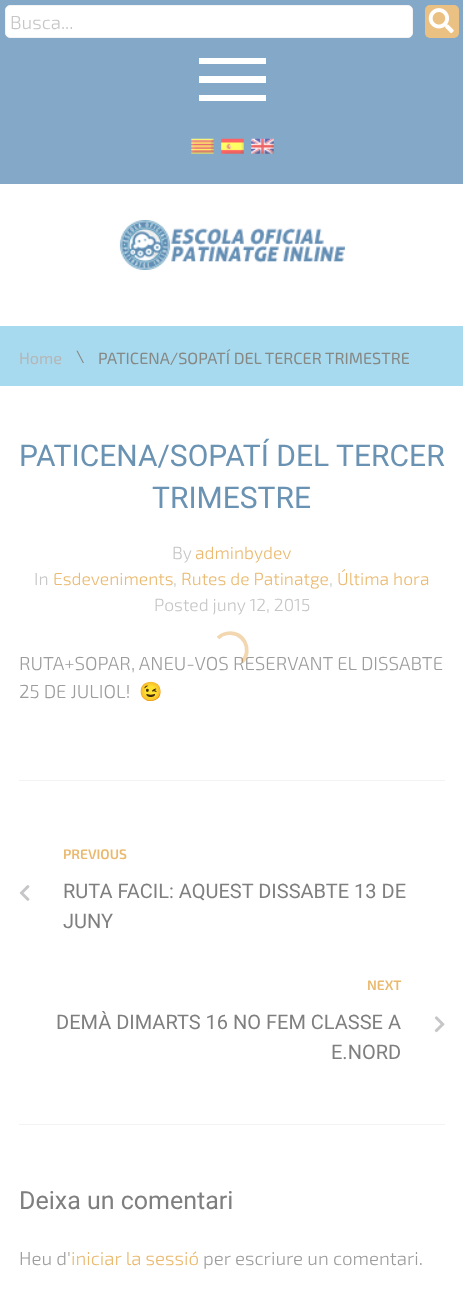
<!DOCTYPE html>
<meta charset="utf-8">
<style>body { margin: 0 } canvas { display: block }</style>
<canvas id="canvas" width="463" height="1303"></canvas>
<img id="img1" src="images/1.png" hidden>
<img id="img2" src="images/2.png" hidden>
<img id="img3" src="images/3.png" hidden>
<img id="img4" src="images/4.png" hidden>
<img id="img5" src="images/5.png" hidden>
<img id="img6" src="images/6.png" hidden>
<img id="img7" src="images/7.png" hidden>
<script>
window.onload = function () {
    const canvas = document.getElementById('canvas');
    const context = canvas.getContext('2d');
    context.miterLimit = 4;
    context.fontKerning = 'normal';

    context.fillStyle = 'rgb(255, 255, 255)';
    context.fillRect(0, 0, 463, 1303);
    context.fillStyle = 'rgb(132, 168, 200)';
    context.fillRect(0, 0, 463, 184);
    context.fillStyle = 'rgb(255, 255, 255)';
    context.beginPath();
    context.roundRect(5.5, 5.5, 407, 32, 4.5);
    context.fill();
    context.strokeStyle = 'rgb(243, 243, 244)';
    context.stroke();
    context.fillStyle = 'rgb(234, 193, 131)';
    context.beginPath();
    context.roundRect(425, 5, 34, 33, 5);
    context.fill();
    context.drawImage(document.getElementById('img1'), 428, 8, 26, 26);
    context.fillStyle = 'rgb(255, 255, 255)';
    context.fillRect(199, 58, 67, 6);
    context.fillRect(199, 76, 67, 7);
    context.fillRect(199, 95, 67, 6);
    context.drawImage(document.getElementById('img2'), 191, 138, 23, 16);
    context.drawImage(document.getElementById('img3'), 221, 138, 23, 16);
    context.drawImage(document.getElementById('img4'), 251, 138, 23, 16);
    context.drawImage(document.getElementById('img5'), 119, 220, 226, 50);
    context.fillStyle = 'rgb(167, 217, 239)';
    context.fillRect(0, 326, 463, 60);
    context.fillStyle = 'rgb(243, 243, 244)';
    context.fillRect(19, 780, 426, 1);
    context.fillRect(19, 1124, 426, 1);
    context.drawImage(document.getElementById('img6'), 19, 885, 11, 16);
    context.drawImage(document.getElementById('img7'), 434, 1016, 11, 17);
    context.font = '300 18.75px "Exo 2"';
    context.fillStyle = 'rgb(198, 198, 199)';
    context.fillText('Busca...', 10, 29);
    context.font = '16.25px "Exo 2"';
    context.fillStyle = 'rgb(182, 182, 182)';
    context.fillText('Home', 19, 364);
    context.fillStyle = 'rgb(135, 136, 131)';
    context.fillText('\\', 76, 362);
    context.fillText('PATICENA/SOPATÍ DEL TERCER TRIMESTRE', 98, 364);
    context.font = '30px Roboto';
    context.fillStyle = 'rgb(106, 146, 178)';
    context.fillText('PATICENA/SOPATÍ DEL TERCER', 19, 466);
    context.fillText('TRIMESTRE', 152, 508);
    context.font = '300 17.5px "Exo 2"';
    context.fillStyle = 'rgb(198, 198, 199)';
    context.fillText('By', 172, 559);
    context.fillStyle = 'rgb(234, 185, 110)';
    context.fillText('adminbydev', 195, 559);
    context.fillStyle = 'rgb(198, 198, 199)';
    context.fillText('In', 34, 585);
    context.fillStyle = 'rgb(234, 185, 110)';
    context.fillText('Esdeveniments', 53, 585);
    context.fillStyle = 'rgb(198, 198, 199)';
    context.fillText(',', 173, 585);
    context.fillStyle = 'rgb(234, 185, 110)';
    context.fillText('Rutes de Patinatge', 181, 585);
    context.fillStyle = 'rgb(198, 198, 199)';
    context.fillText(',', 329, 585);
    context.fillStyle = 'rgb(234, 185, 110)';
    context.fillText('Última hora', 337, 585);
    context.fillStyle = 'rgb(198, 198, 199)';
    context.fillText('Posted juny 12, 2015', 154, 611);
    context.font = '300 18.75px "Exo 2"';
    context.fillStyle = 'rgb(156, 156, 156)';
    context.fillText('RUTA+SOPAR, ANEU-VOS RESERVANT EL DISSABTE', 19, 670);
    context.fillText('25 DE JULIOL!', 19, 698);
    context.font = '18.75px Noto Color Emoji';
    context.fillText('😉', 139, 698);
    context.font = '600 13.75px "Exo 2"';
    context.fillStyle = 'rgb(234, 185, 110)';
    context.fillText('PREVIOUS', 63, 859);
    context.font = '20px Roboto';
    context.fillStyle = 'rgb(127, 127, 127)';
    context.fillText('RUTA FACIL: AQUEST DISSABTE 13 DE', 63, 898);
    context.fillText('JUNY', 63, 928);
    context.font = '600 13.75px "Exo 2"';
    context.fillStyle = 'rgb(234, 185, 110)';
    context.fillText('NEXT', 367, 990);
    context.font = '20px Roboto';
    context.fillStyle = 'rgb(127, 127, 127)';
    context.fillText('DEMÀ DIMARTS 16 NO FEM CLASSE A', 56, 1029);
    context.fillText('E.NORD', 331, 1059);
    context.font = '25px Roboto';
    context.fillText('Deixa un comentari', 19, 1209);
    context.font = '300 18.75px "Exo 2"';
    context.fillStyle = 'rgb(156, 156, 156)';
    context.fillText('Heu d\'', 19, 1265);
    context.fillStyle = 'rgb(234, 185, 110)';
    context.fillText('iniciar la sessió', 71, 1265);
    context.fillStyle = 'rgb(156, 156, 156)';
    context.fillText('per escriure un comentari.', 203, 1265);
    context.beginPath();
    context.moveTo(218, 638);
    context.bezierCurveTo(220.5, 635.5, 223.5, 634, 226.5, 633.5);
    context.bezierCurveTo(243, 630, 253.5, 650, 242, 662);
    context.strokeStyle = 'rgba(221, 153, 51, 0.39)';
    context.lineWidth = 3.8;
    context.stroke();
};
</script>
